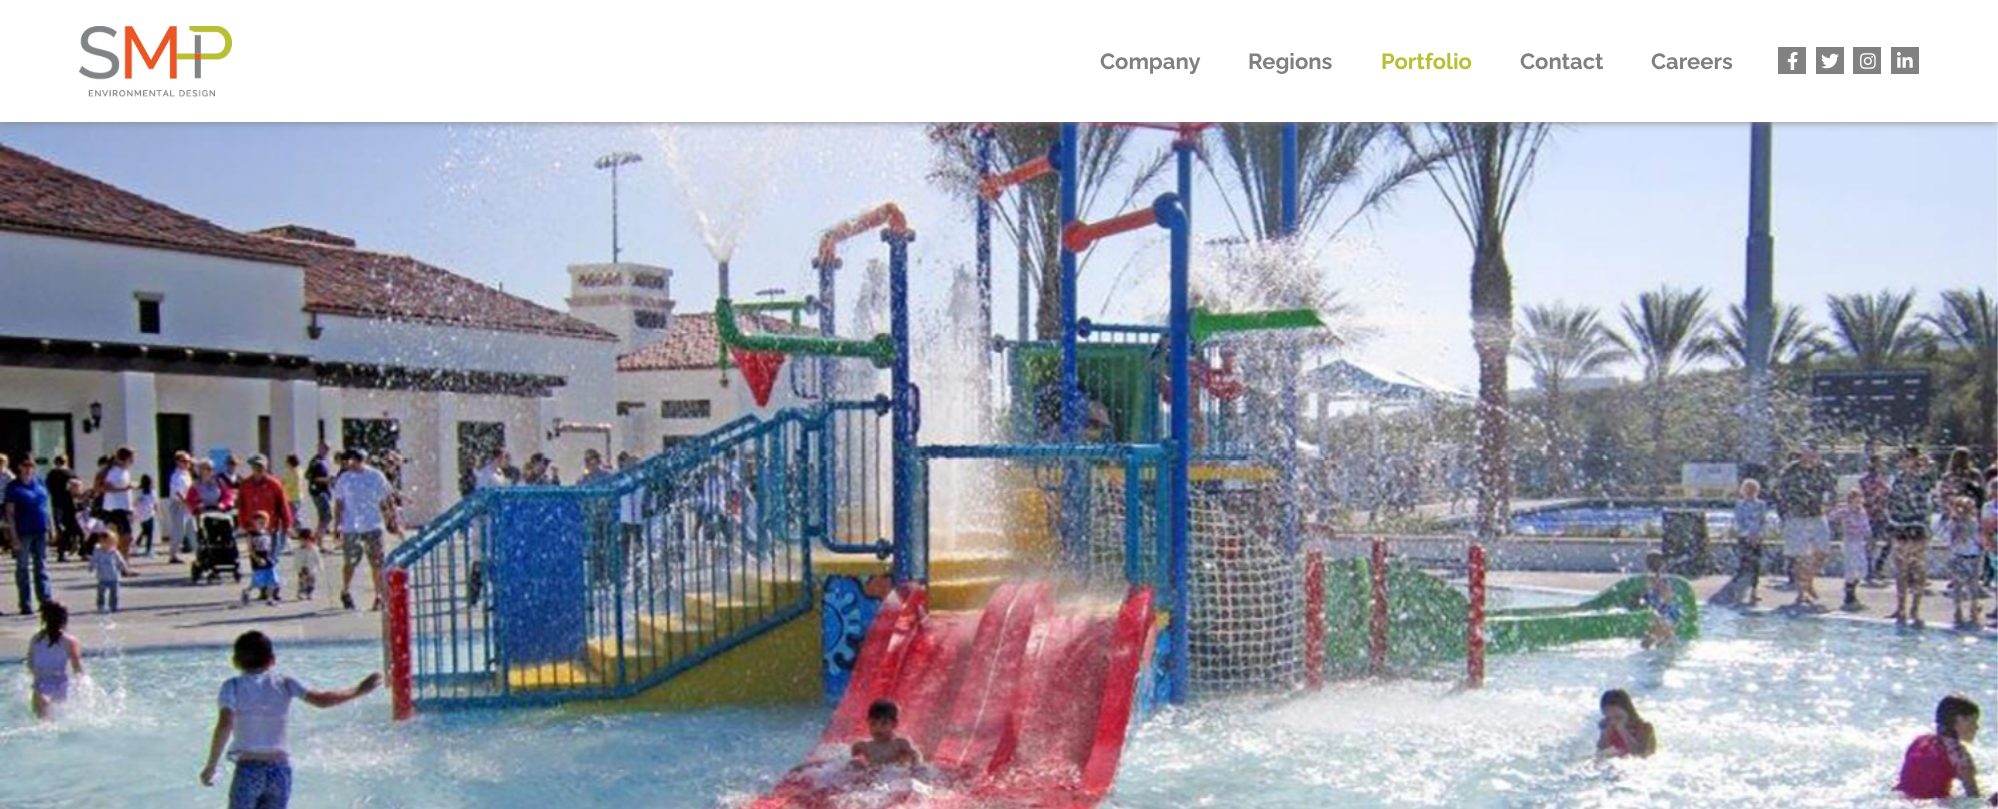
<!DOCTYPE html>
<meta charset="utf-8">
<style>body { margin: 0 } canvas { display: block }</style>
<canvas id="canvas" width="1998" height="809"></canvas>
<img id="img1" src="images/6.png" hidden>
<img id="img2" src="images/1.png" hidden>
<img id="img3" src="images/2.png" hidden>
<img id="img4" src="images/3.png" hidden>
<img id="img5" src="images/4.png" hidden>
<img id="img6" src="images/5.png" hidden>
<script>
window.onload = function () {
    const canvas = document.getElementById('canvas');
    const context = canvas.getContext('2d');
    context.miterLimit = 4;
    context.fontKerning = 'normal';

    context.fillStyle = 'rgb(255, 255, 255)';
    context.fillRect(0, 0, 1998, 809);
    context.drawImage(document.getElementById('img1'), 0, 122, 1998, 687);
    context.fillStyle = 'rgb(129, 132, 134)';
    context.filter = 'blur(4.5px)';
    context.beginPath();
    context.rect(0, 0, 1998, 122);
    context.fill();
    context.filter = 'none';
    context.fillStyle = 'rgb(255, 255, 255)';
    context.fillRect(0, 0, 1998, 122);
    context.drawImage(document.getElementById('img2'), 79, 26, 153, 71);
    context.fillStyle = 'rgb(129, 129, 129)';
    context.fillRect(1778, 47, 28, 27);
    context.drawImage(document.getElementById('img3'), 1787, 52, 11, 18);
    context.fillRect(1816, 47, 28, 27);
    context.drawImage(document.getElementById('img4'), 1821, 53, 18, 16);
    context.fillRect(1853, 47, 28, 27);
    context.drawImage(document.getElementById('img5'), 1860, 53, 16, 16);
    context.fillRect(1891, 47, 28, 27);
    context.drawImage(document.getElementById('img6'), 1897, 52, 16, 16);
    context.font = 'bold 22px Raleway';
    context.fillStyle = 'rgb(128, 128, 128)';
    context.fillText('Company', 1100, 69);
    context.fillText('Regions', 1248, 69);
    context.fillStyle = 'rgb(185, 191, 51)';
    context.fillText('Portfolio', 1381, 69);
    context.fillStyle = 'rgb(128, 128, 128)';
    context.fillText('Contact', 1520, 69);
    context.fillText('Careers', 1651, 69);
};
</script>
